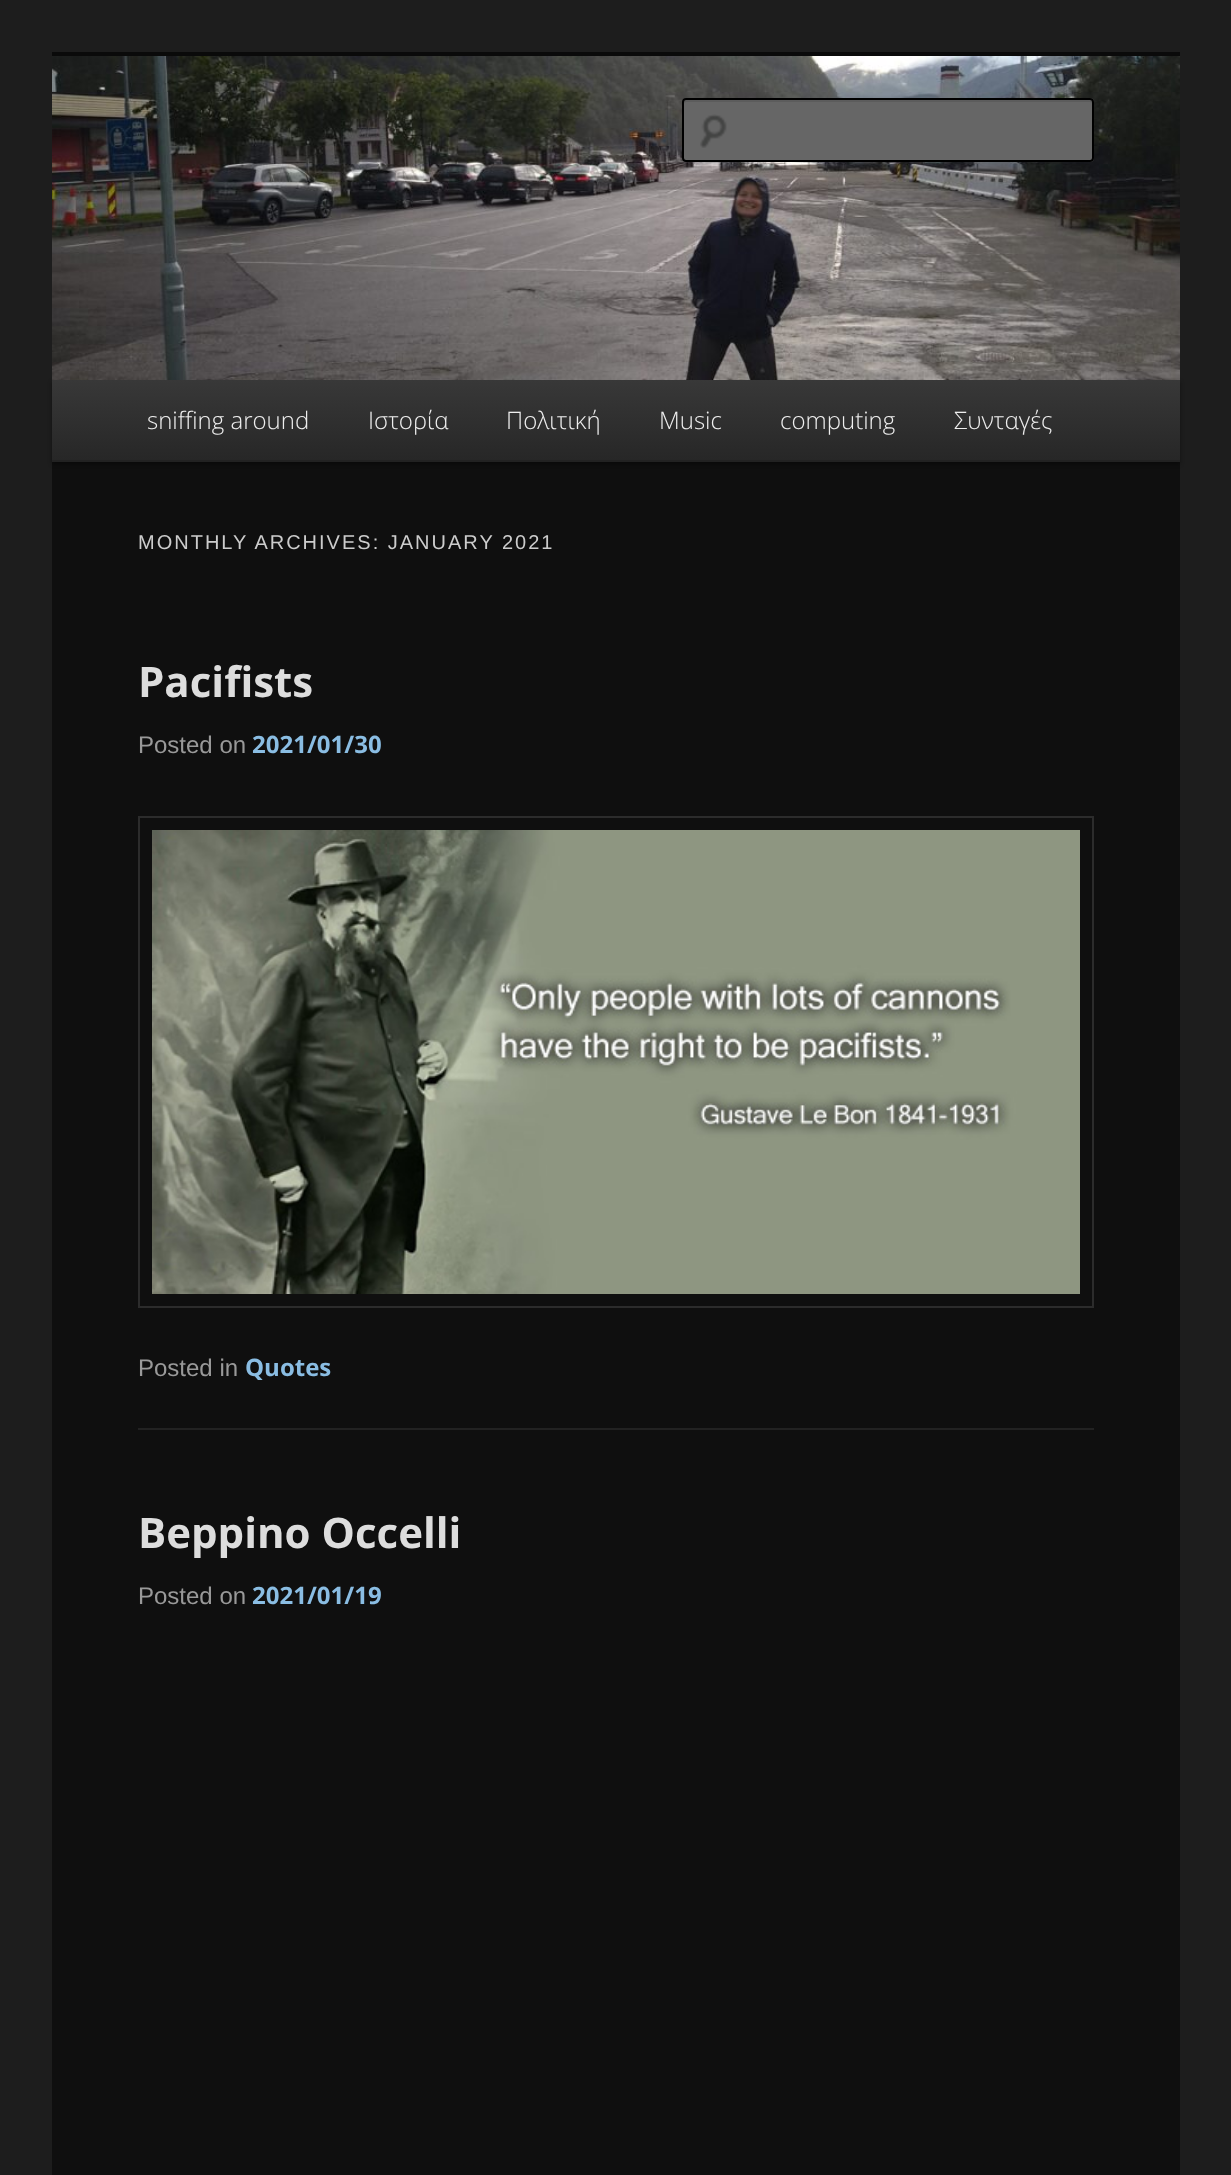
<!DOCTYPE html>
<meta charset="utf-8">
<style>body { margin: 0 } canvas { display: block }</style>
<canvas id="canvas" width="1231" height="2175"></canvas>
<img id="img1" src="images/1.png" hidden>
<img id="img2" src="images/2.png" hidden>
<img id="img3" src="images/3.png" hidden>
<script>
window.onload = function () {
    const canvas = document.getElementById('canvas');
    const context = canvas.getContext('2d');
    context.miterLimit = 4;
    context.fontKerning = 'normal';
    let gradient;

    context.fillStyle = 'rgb(29, 29, 29)';
    context.fillRect(0, 0, 1231, 2175);
    context.fillStyle = 'rgb(15, 15, 15)';
    context.fillRect(52, 462, 1128, 1713);
    context.fillStyle = 'rgb(10, 10, 10)';
    context.fillRect(52, 52, 1128, 4);
    context.fillStyle = 'rgba(0, 0, 0, 0.4)';
    context.filter = 'blur(2px)';
    context.beginPath();
    context.rect(52, 382, 1128, 82);
    context.fill();
    context.filter = 'none';
    context.drawImage(document.getElementById('img1'), 52, 56, 1128, 324);
    context.fillStyle = 'rgb(102, 102, 102)';
    context.beginPath();
    context.roundRect(682, 98, 412, 64, 4);
    context.fill();
    context.drawImage(document.getElementById('img2'), 700, 114, 27, 34);
    context.fillStyle = 'rgb(92, 92, 92)';
    context.beginPath();
    context.moveTo(686, 102);
    context.lineTo(1090, 102);
    context.bezierCurveTo(1091, 102, 1092, 103, 1092, 104);
    context.bezierCurveTo(1092, 102, 1092, 100, 1090, 100);
    context.lineTo(686, 100);
    context.lineTo(684, 101);
    context.lineTo(684, 104);
    context.bezierCurveTo(684, 103, 685, 102, 686, 102);
    context.closePath();
    context.fill();
    context.beginPath();
    context.roundRect(683, 99, 410, 62, 3);
    context.strokeStyle = 'rgb(0, 0, 0)';
    context.lineWidth = 2;
    context.stroke();
    gradient = context.createLinearGradient(616, 380, 616, 460);
    gradient.addColorStop(0, 'rgb(56, 56, 56)');
    gradient.addColorStop(1, 'rgb(39, 39, 39)');
    context.fillStyle = gradient;
    context.fillRect(52, 380, 1128, 80);
    context.fillStyle = 'rgb(34, 34, 34)';
    context.fillRect(52, 460, 1128, 2);
    context.fillRect(138, 1428, 956, 2);
    context.strokeStyle = 'rgb(44, 44, 44)';
    context.strokeRect(139, 817, 954, 490);
    context.drawImage(document.getElementById('img3'), 152, 830, 928, 464);
    context.font = '300 24px Open Sans';
    context.fillStyle = 'rgb(238, 238, 238)';
    context.fillText('sniffing around', 147, 429);
    context.fillText('Ιστορία', 368, 429);
    context.fillText('Πολιτική', 506, 429);
    context.fillText('Music', 659, 429);
    context.fillText('computing', 780, 429);
    context.fillText('Συνταγές', 954, 429);
    context.letterSpacing = '2px';
    context.font = '20px Liberation Sans';
    context.fillStyle = 'rgb(204, 204, 204)';
    context.fillText('MONTHLY ARCHIVES: JANUARY 2021', 138, 549);
    context.letterSpacing = '0px';
    context.font = 'bold 42px Open Sans';
    context.fillStyle = 'rgb(221, 221, 221)';
    context.fillText('Pacifists', 138, 697);
    context.font = '24px Liberation Sans';
    context.fillStyle = 'rgb(153, 153, 153)';
    context.fillText('Posted on', 138, 753);
    context.font = 'bold 24px Open Sans';
    context.fillStyle = 'rgb(138, 189, 227)';
    context.fillText('2021/01/30', 252, 753);
    context.font = '24px Liberation Sans';
    context.fillStyle = 'rgb(153, 153, 153)';
    context.fillText('Posted in', 138, 1376);
    context.font = 'bold 24px Open Sans';
    context.fillStyle = 'rgb(138, 189, 227)';
    context.fillText('Quotes', 245, 1376);
    context.font = 'bold 42px Open Sans';
    context.fillStyle = 'rgb(221, 221, 221)';
    context.fillText('Beppino Occelli', 138, 1548);
    context.font = '24px Liberation Sans';
    context.fillStyle = 'rgb(153, 153, 153)';
    context.fillText('Posted on', 138, 1604);
    context.font = 'bold 24px Open Sans';
    context.fillStyle = 'rgb(138, 189, 227)';
    context.fillText('2021/01/19', 252, 1604);
};
</script>
